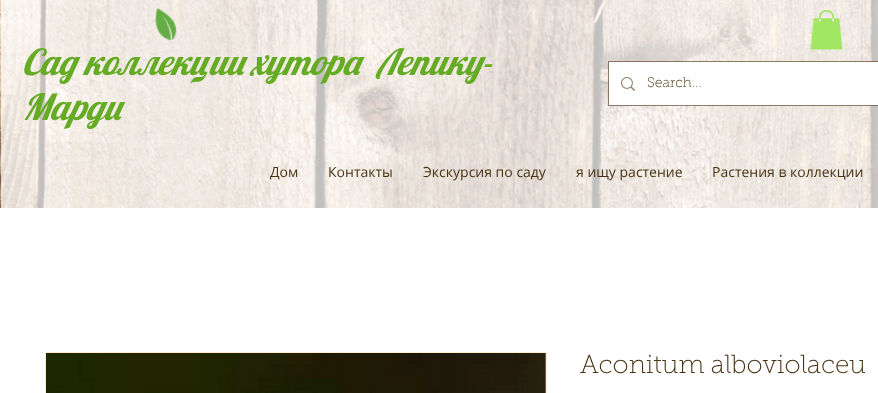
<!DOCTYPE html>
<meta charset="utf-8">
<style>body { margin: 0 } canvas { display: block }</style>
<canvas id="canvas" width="878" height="393"></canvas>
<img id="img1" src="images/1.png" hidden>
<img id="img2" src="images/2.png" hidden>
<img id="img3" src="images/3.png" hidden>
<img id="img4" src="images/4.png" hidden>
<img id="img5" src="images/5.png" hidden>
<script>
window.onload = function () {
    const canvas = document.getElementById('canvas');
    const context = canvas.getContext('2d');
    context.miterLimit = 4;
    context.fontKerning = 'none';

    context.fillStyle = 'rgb(255, 255, 255)';
    context.fillRect(0, 0, 878, 393);
    context.drawImage(document.getElementById('img1'), 0, 0, 878, 208);
    context.fillStyle = 'rgba(255, 255, 255, 0.75)';
    context.fillRect(1, 0, 877, 208);
    context.drawImage(document.getElementById('img2'), 155, 7, 22, 34);
    context.drawImage(document.getElementById('img3'), 810, 10, 33, 40);
    context.strokeStyle = 'rgba(73, 52, 20, 0.6)';
    context.strokeRect(608.5, 61.5, 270, 44);
    context.fillStyle = 'rgb(255, 255, 255)';
    context.fillRect(609, 62, 269, 43);
    context.drawImage(document.getElementById('img4'), 621, 77, 14, 14);
    context.strokeStyle = 'rgb(255, 237, 209)';
    context.strokeRect(45.5, 352.5, 501, 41);
    context.drawImage(document.getElementById('img5'), 46, 353, 500, 40);
    context.font = 'italic 36px Lobster';
    context.fillStyle = 'rgb(101, 171, 36)';
    context.fillText('Сад коллекции хутора', 22, 75);
    context.fillText('Лепику-', 377, 75);
    context.fillText('Марди', 22, 120);
    context.font = '100 14px "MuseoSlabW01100"';
    context.fillStyle = 'rgb(73, 52, 20)';
    context.fillText('Search...', 647, 87);
    context.font = '14px Open Sans';
    context.fillText('Дом', 270, 177);
    context.fillText('Контакты', 328, 177);
    context.fillText('Экскурсия по саду', 423, 177);
    context.fillText('я ищу растение', 576, 177);
    context.fillText('Растения в коллекции', 712, 177);
    context.font = '100 26px "MuseoSlabW01100"';
    context.fillText('Aconitum alboviolaceu', 580, 373);
};
</script>
